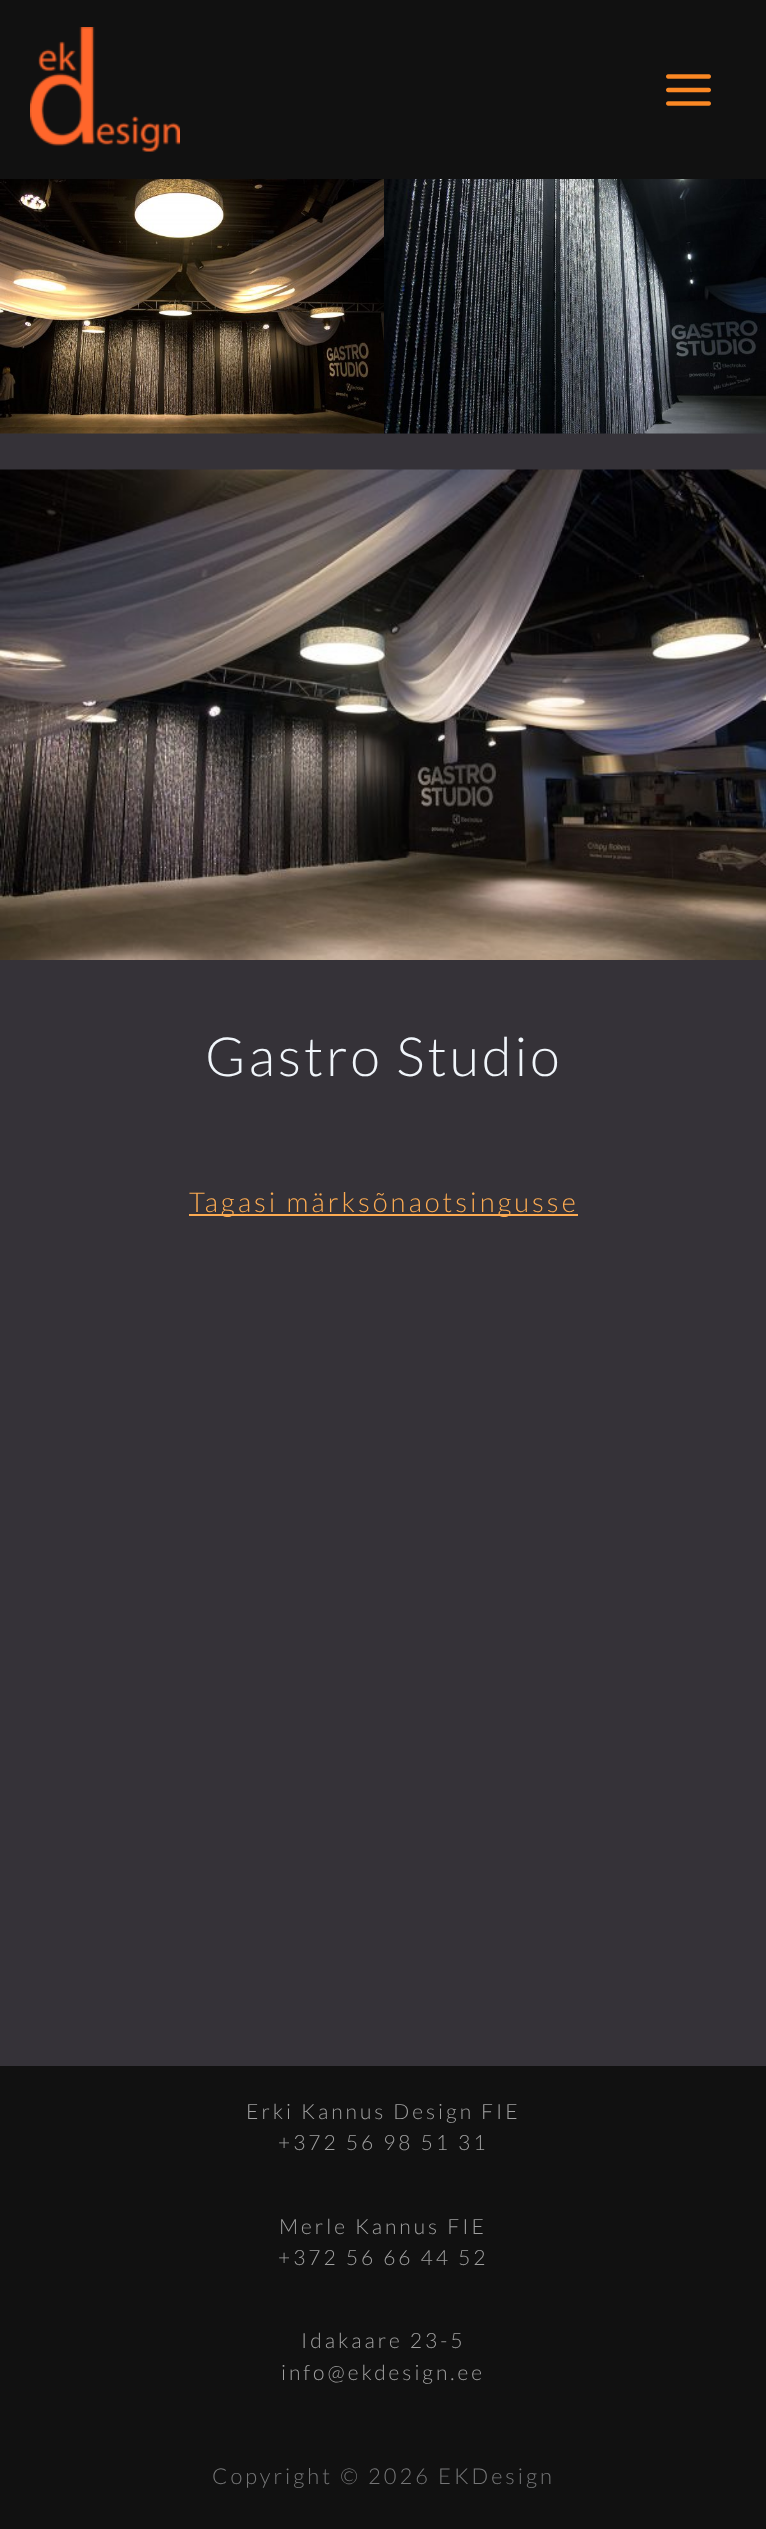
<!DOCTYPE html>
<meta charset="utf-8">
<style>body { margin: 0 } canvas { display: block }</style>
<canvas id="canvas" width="766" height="2529"></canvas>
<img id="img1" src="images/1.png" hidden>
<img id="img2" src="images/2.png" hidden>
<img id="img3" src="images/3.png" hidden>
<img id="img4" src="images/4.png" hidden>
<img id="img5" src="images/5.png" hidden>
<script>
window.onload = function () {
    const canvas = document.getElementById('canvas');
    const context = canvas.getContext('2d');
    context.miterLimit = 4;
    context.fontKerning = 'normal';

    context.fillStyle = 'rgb(53, 50, 56)';
    context.fillRect(0, 0, 766, 2529);
    context.fillStyle = 'rgb(17, 17, 17)';
    context.fillRect(0, 0, 766, 179);
    context.drawImage(document.getElementById('img1'), 30, 27, 150, 125);
    context.drawImage(document.getElementById('img2'), 666, 74, 45, 32);
    context.drawImage(document.getElementById('img3'), 0, 179, 384, 255);
    context.drawImage(document.getElementById('img4'), 384, 179, 382, 255);
    context.drawImage(document.getElementById('img5'), 0, 469, 766, 491);
    context.fillStyle = 'rgb(252, 171, 82)';
    context.fillRect(189, 1214, 389, 2);
    context.fillStyle = 'rgb(17, 17, 17)';
    context.fillRect(0, 2066, 766, 463);
    context.letterSpacing = '3px';
    context.font = '300 54px Lato';
    context.fillStyle = 'rgb(240, 245, 250)';
    context.fillText('Gastro Studio', 205, 1076);
    context.font = '300 27.4px Lato';
    context.fillStyle = 'rgb(252, 171, 82)';
    context.fillText('Tagasi märksõnaotsingusse', 189, 1212);
    context.font = '300 21px Lato';
    context.fillStyle = 'rgb(160, 160, 160)';
    context.fillText('Erki Kannus Design FIE', 246, 2119);
    context.fillText('+372 56 98 51 31', 278, 2150);
    context.fillText('Merle Kannus FIE', 279, 2234);
    context.fillText('+372 56 66 44 52', 278, 2265);
    context.fillText('Idakaare 23-5', 301, 2348);
    context.fillText('info@ekdesign.ee', 281, 2380);
    context.font = '300 21.9px Lato';
    context.fillStyle = 'rgb(117, 118, 119)';
    context.fillText('Copyright © 2026 EKDesign', 212, 2484);
};
</script>
